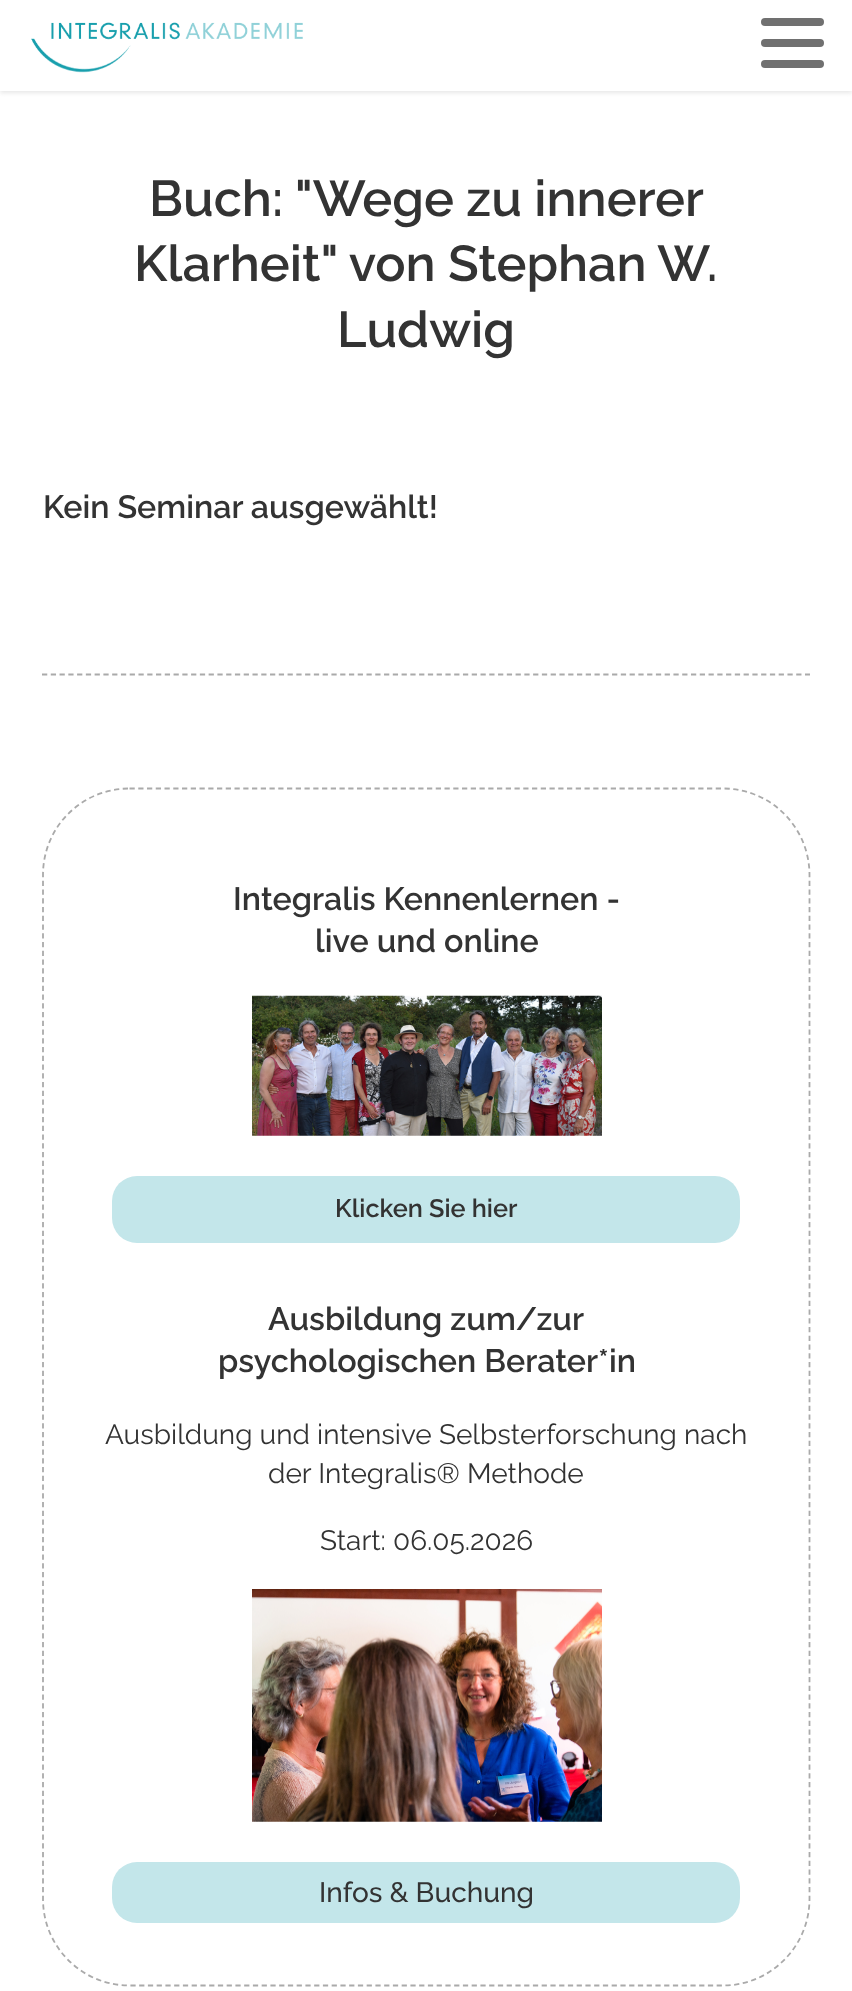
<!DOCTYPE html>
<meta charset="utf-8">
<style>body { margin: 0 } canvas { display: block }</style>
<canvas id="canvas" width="852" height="1991"></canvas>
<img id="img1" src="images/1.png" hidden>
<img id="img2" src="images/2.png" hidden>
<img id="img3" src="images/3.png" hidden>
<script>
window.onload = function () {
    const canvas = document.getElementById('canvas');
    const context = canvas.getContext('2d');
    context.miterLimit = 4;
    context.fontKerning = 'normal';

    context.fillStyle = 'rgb(255, 255, 255)';
    context.fillRect(0, 0, 852, 1991);
    context.save();
    context.beginPath();
    context.rect(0, 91, 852, 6);
    context.clip();
    context.fillStyle = 'rgb(231, 231, 231)';
    context.filter = 'blur(2px)';
    context.beginPath();
    context.rect(0, 2, 852, 91);
    context.fill();
    context.filter = 'none';
    context.restore();
    context.drawImage(document.getElementById('img1'), 31, 22, 272, 51);
    context.fillStyle = 'rgb(112, 112, 112)';
    context.beginPath();
    context.roundRect(761, 18, 63, 8, 4);
    context.fill();
    context.beginPath();
    context.roundRect(761, 39, 63, 8, 4);
    context.fill();
    context.beginPath();
    context.roundRect(761, 60, 63, 8, 4);
    context.fill();
    context.beginPath();
    context.moveTo(42, 674.5);
    context.lineTo(810, 674.5);
    context.strokeStyle = 'rgb(170, 170, 170)';
    context.lineWidth = 1.8;
    context.setLineDash([5.25, 3.52]);
    context.stroke();
    context.beginPath();
    context.moveTo(129.5, 788.5);
    context.lineTo(723, 788.5);
    context.bezierCurveTo(770.5, 788.5, 809.5, 827, 809.5, 875);
    context.lineTo(809.5, 1899);
    context.bezierCurveTo(809.5, 1946.5, 770.5, 1985.5, 723, 1985.5);
    context.lineTo(129.5, 1985.5);
    context.bezierCurveTo(81.5, 1985.5, 43, 1946.5, 43, 1899);
    context.lineTo(43, 875);
    context.bezierCurveTo(43, 827, 81.5, 788.5, 129.5, 788.5);
    context.closePath();
    context.setLineDash([5.25, 3.5]);
    context.stroke();
    context.drawImage(document.getElementById('img2'), 252, 995, 350, 141);
    context.fillStyle = 'rgb(195, 230, 234)';
    context.beginPath();
    context.roundRect(112, 1176, 628, 67, 25);
    context.fill();
    context.drawImage(document.getElementById('img3'), 252, 1589, 350, 233);
    context.beginPath();
    context.roundRect(112, 1862, 628, 61, 25);
    context.fill();
    context.font = '600 50.4px Raleway';
    context.fillStyle = 'rgb(51, 51, 51)';
    context.fillText('Buch: "Wege zu innerer', 149, 216);
    context.fillText('Klarheit" von Stephan W.', 134, 281);
    context.fillText('Ludwig', 337, 347);
    context.font = '600 32.25px Raleway';
    context.fillText('Kein Seminar ausgewählt!', 43, 518);
    context.fillText('Integralis Kennenlernen -', 233, 910);
    context.fillText('live und online', 315, 952);
    context.font = '600 25.25px Raleway';
    context.fillText('Klicken Sie hier', 335, 1217);
    context.font = '600 32.25px Raleway';
    context.fillText('Ausbildung zum/zur', 268, 1330);
    context.fillText('psychologischen Berater*in', 218, 1372);
    context.font = '28px Raleway';
    context.fillText('Ausbildung und intensive Selbsterforschung nach', 105, 1444);
    context.fillText('der Integralis® Methode', 268, 1483);
    context.fillText('Start: 06.05.2026', 320, 1550);
    context.font = '500 28px Raleway';
    context.fillText('Infos & Buchung', 319, 1902);
};
</script>
